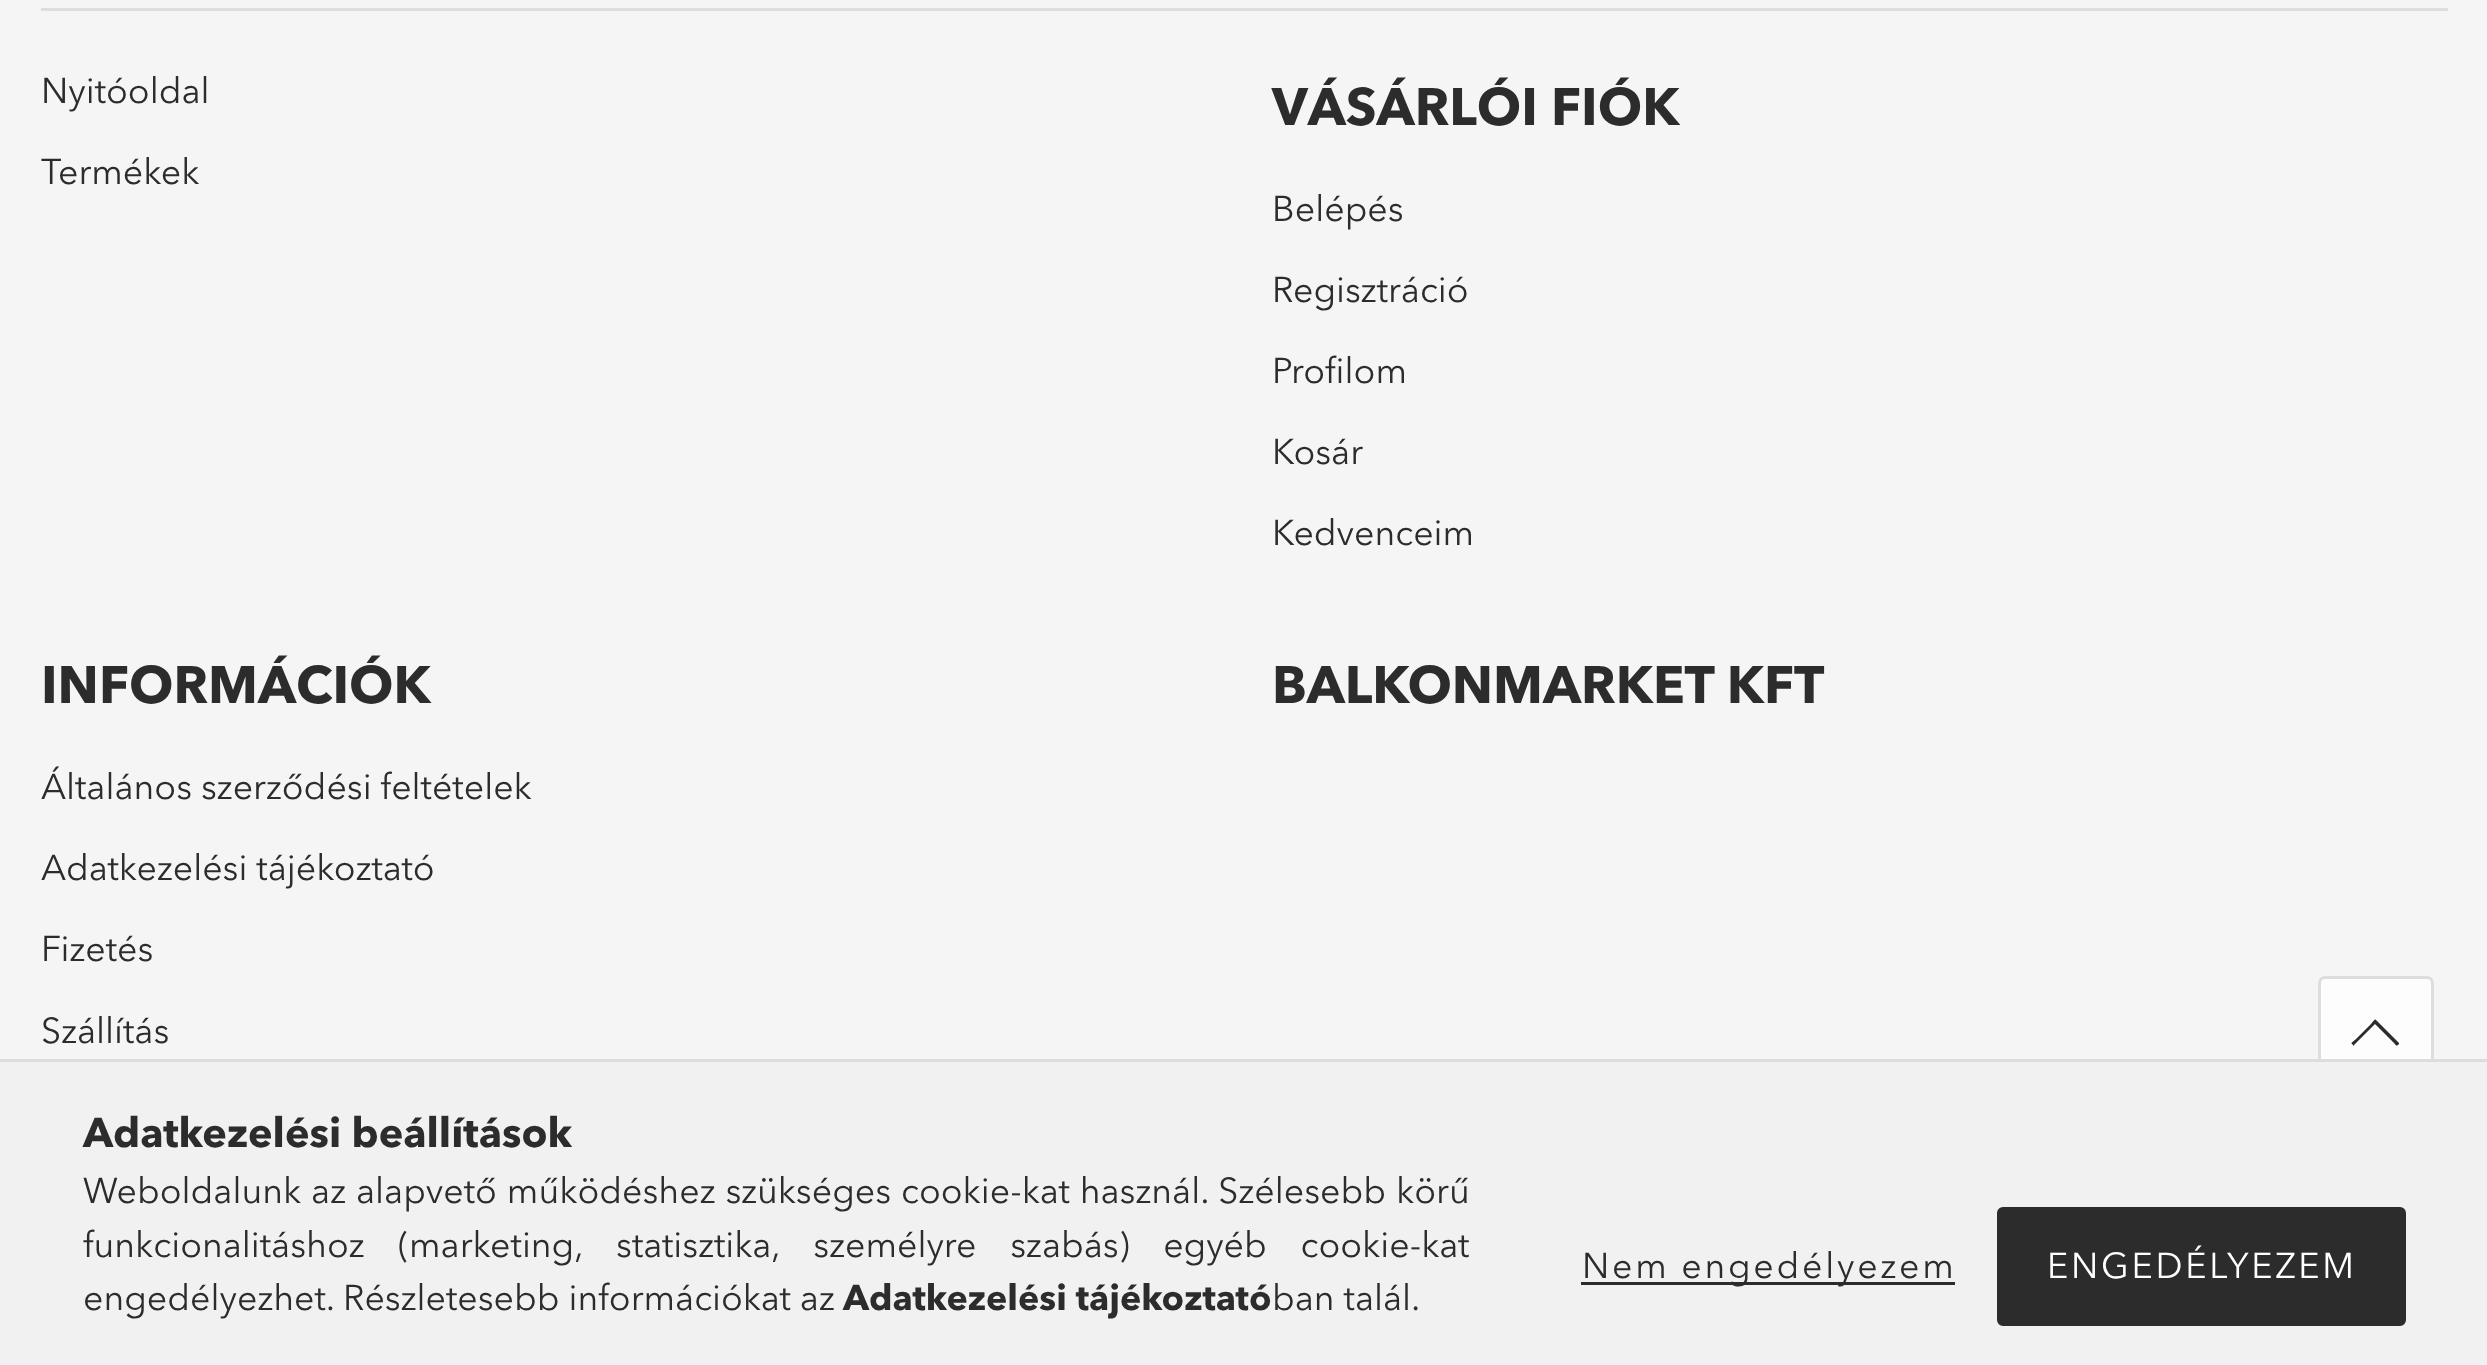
<!DOCTYPE html>
<meta charset="utf-8">
<style>body { margin: 0 } canvas { display: block }</style>
<canvas id="canvas" width="2487" height="1365"></canvas>
<script>
window.onload = function () {
    const canvas = document.getElementById('canvas');
    const context = canvas.getContext('2d');
    context.miterLimit = 4;
    context.fontKerning = 'normal';

    context.fillStyle = 'rgb(245, 245, 245)';
    context.fillRect(0, 0, 2487, 1365);
    context.fillStyle = 'rgb(221, 221, 221)';
    context.fillRect(41, 8, 2407, 3);
    context.fillStyle = 'rgb(253, 253, 253)';
    context.beginPath();
    context.roundRect(2319.5, 977.5, 113, 113, 5.5);
    context.fill();
    context.strokeStyle = 'rgb(221, 221, 221)';
    context.lineWidth = 3;
    context.stroke();
    context.fillStyle = 'rgb(44, 44, 44)';
    context.beginPath();
    context.moveTo(2352, 1044);
    context.bezierCurveTo(2350, 1043, 2354, 1041, 2356, 1039);
    context.lineTo(2371, 1024);
    context.bezierCurveTo(2376, 1018, 2374, 1018, 2380, 1024);
    context.lineTo(2399, 1043);
    context.lineTo(2399, 1044);
    context.bezierCurveTo(2396, 1047, 2396, 1045, 2393, 1042);
    context.lineTo(2375, 1024);
    context.lineTo(2354, 1045);
    context.bezierCurveTo(2354, 1046, 2353, 1046, 2353, 1045);
    context.closePath();
    context.fill();
    context.fillStyle = 'rgb(241, 241, 241)';
    context.fillRect(0, 1062, 2487, 303);
    context.fillStyle = 'rgb(221, 221, 221)';
    context.fillRect(0, 1059, 2487, 3);
    context.fillStyle = 'rgb(44, 44, 44)';
    context.fillRect(1581, 1282, 374, 3);
    context.beginPath();
    context.roundRect(1998.5, 1208.5, 406, 116, 4.5);
    context.fill();
    context.strokeStyle = 'rgb(44, 44, 44)';
    context.stroke();
    context.font = '35.75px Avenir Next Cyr';
    context.fillText('Nyitóoldal', 41, 103);
    context.fillText('Termékek', 41, 184);
    context.font = 'bold 52.25px Avenir Next Cyr';
    context.fillText('VÁSÁRLÓI FIÓK', 1272, 125);
    context.font = '35.75px Avenir Next Cyr';
    context.fillText('Belépés', 1272, 221);
    context.fillText('Regisztráció', 1272, 302);
    context.fillText('Profilom', 1272, 383);
    context.fillText('Kosár', 1272, 464);
    context.fillText('Kedvenceim', 1272, 545);
    context.font = 'bold 52.25px Avenir Next Cyr';
    context.fillText('INFORMÁCIÓK', 41, 703);
    context.font = '35.75px Avenir Next Cyr';
    context.fillText('Általános szerződési feltételek', 41, 799);
    context.fillText('Adatkezelési tájékoztató', 41, 880);
    context.fillText('Fizetés', 41, 961);
    context.fillText('Szállítás', 41, 1043);
    context.font = 'bold 52.25px Avenir Next Cyr';
    context.fillText('BALKONMARKET KFT', 1272, 703);
    context.font = 'bold 41.25px Avenir Next Cyr';
    context.fillText('Adatkezelési beállítások', 83, 1147);
    context.wordSpacing = '1px';
    context.font = '35.75px Avenir Next Cyr';
    context.fillText('Weboldalunk az alapvető működéshez szükséges cookie-kat használ. Szélesebb körű', 83, 1203);
    context.wordSpacing = '24.75px';
    context.fillText('funkcionalitáshoz (marketing, statisztika, személyre szabás) egyéb cookie-kat', 83, 1257);
    context.wordSpacing = '0px';
    context.fillText('engedélyezhet. Részletesebb információkat az', 83, 1310);
    context.font = 'bold 35.75px Avenir Next Cyr';
    context.fillText('Adatkezelési tájékoztató', 843, 1310);
    context.font = '35.75px Avenir Next Cyr';
    context.fillText('ban talál.', 1272, 1310);
    context.letterSpacing = '2.75px';
    context.fillText('Nem engedélyezem', 1582, 1278);
    context.fillStyle = 'rgb(255, 255, 255)';
    context.fillText('ENGEDÉLYEZEM', 2047, 1278);
};
</script>
